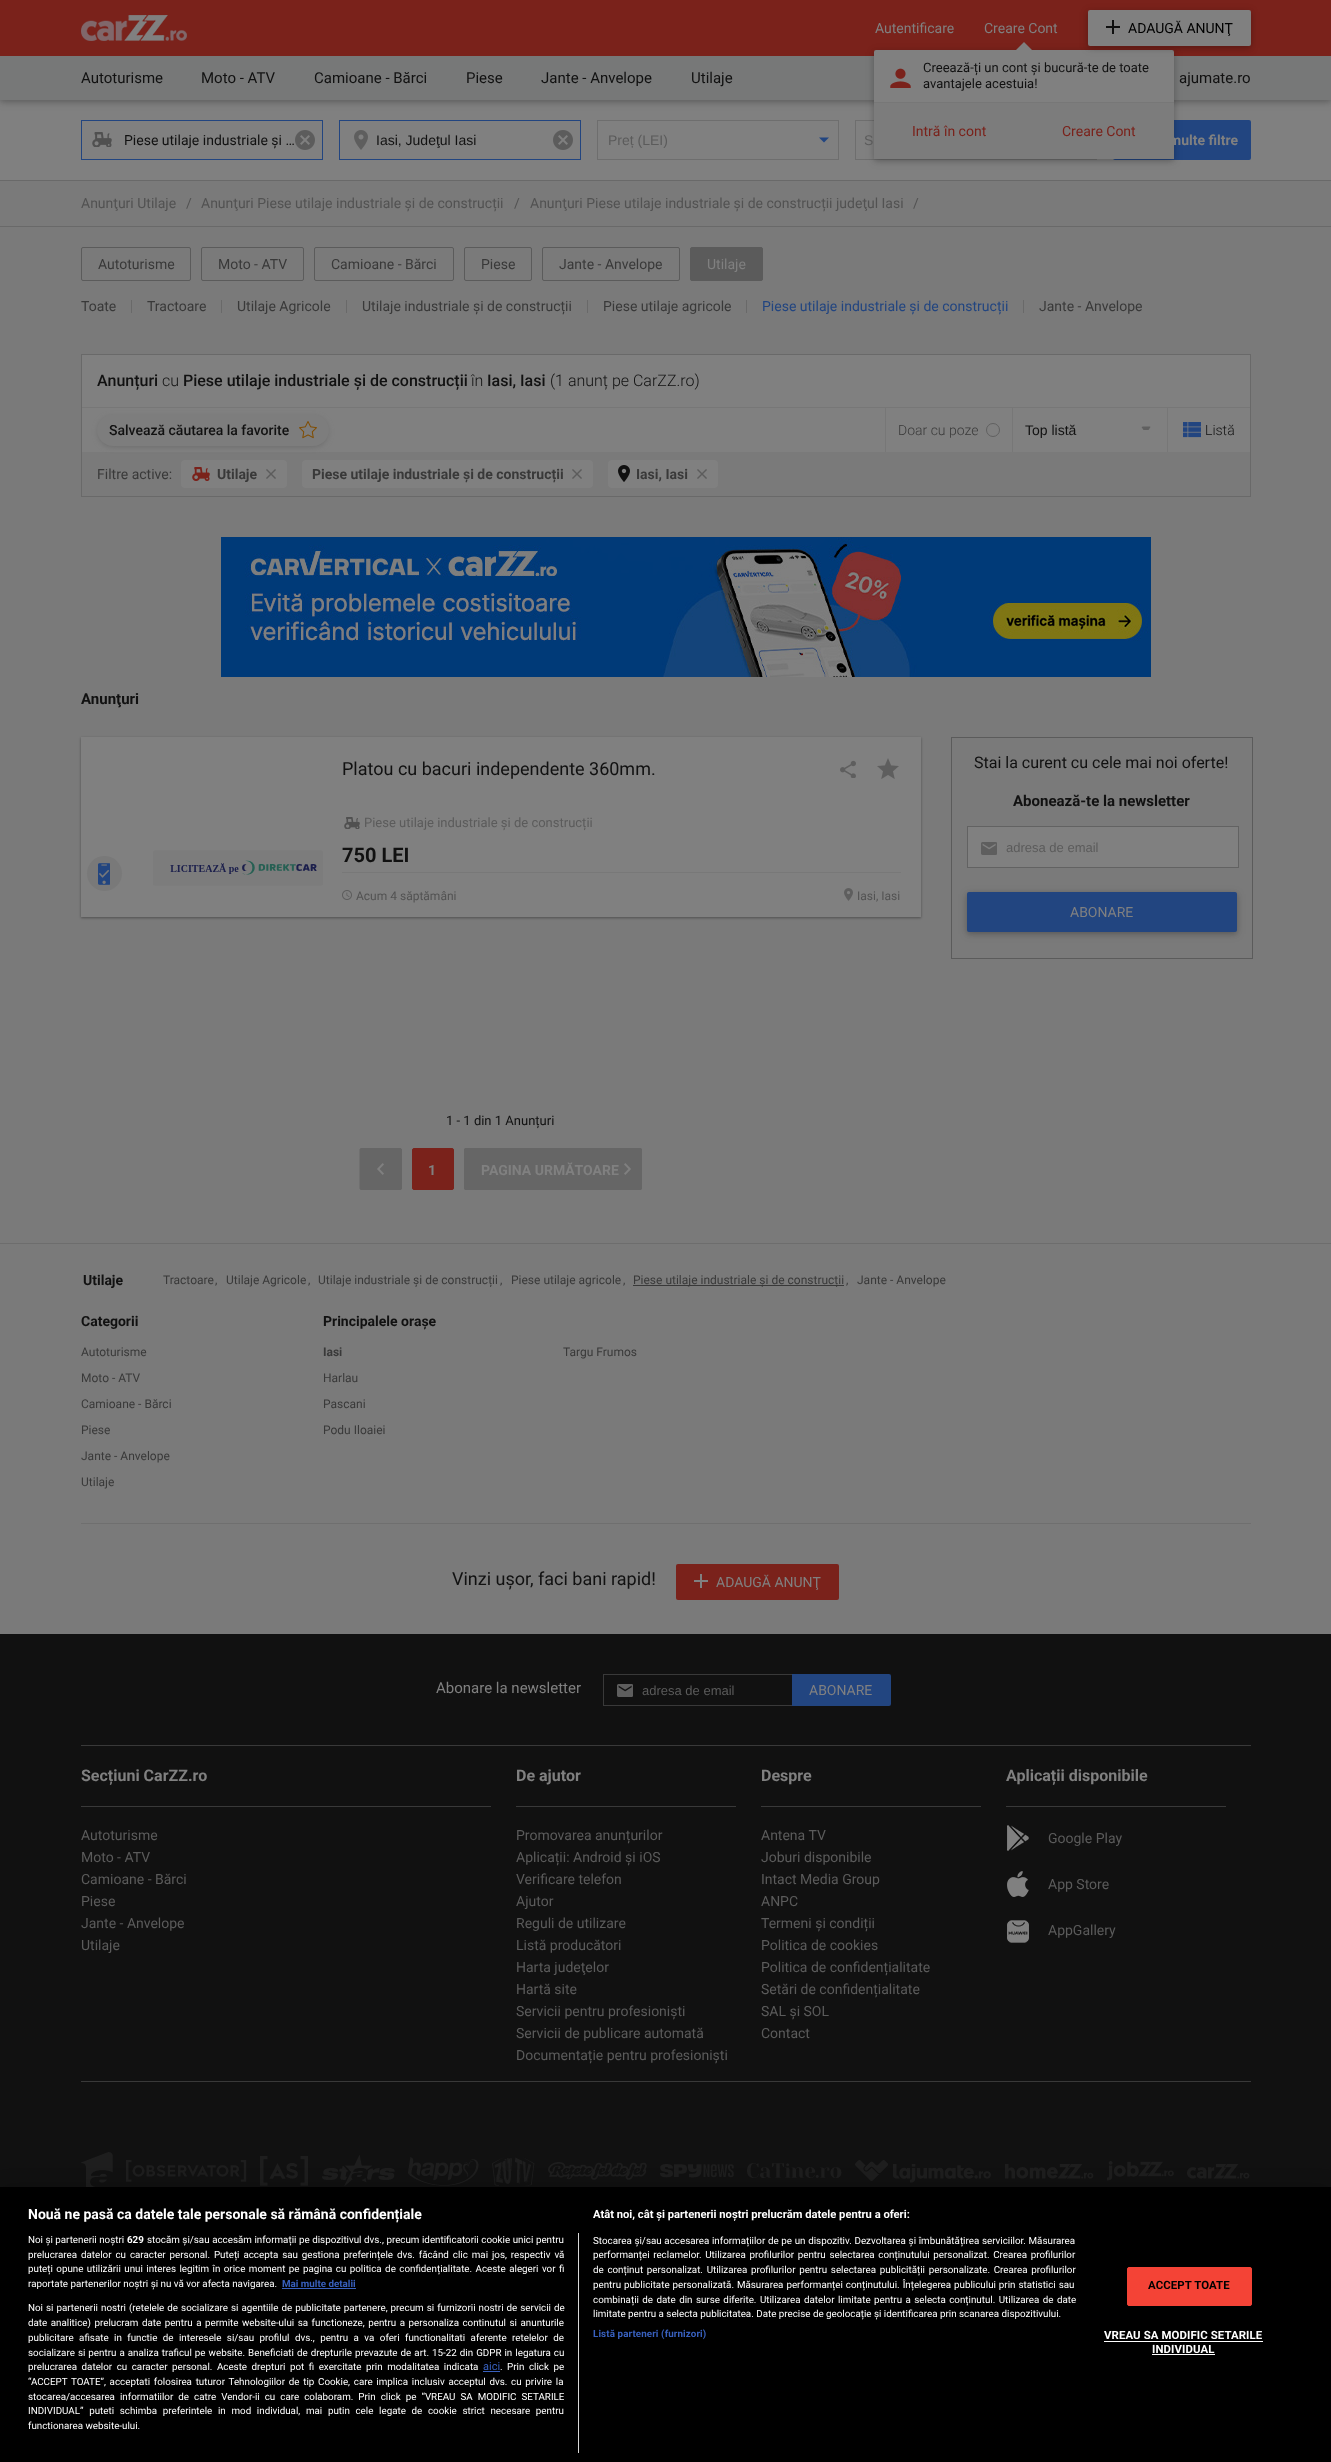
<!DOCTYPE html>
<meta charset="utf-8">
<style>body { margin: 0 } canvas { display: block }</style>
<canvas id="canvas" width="1331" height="2462"></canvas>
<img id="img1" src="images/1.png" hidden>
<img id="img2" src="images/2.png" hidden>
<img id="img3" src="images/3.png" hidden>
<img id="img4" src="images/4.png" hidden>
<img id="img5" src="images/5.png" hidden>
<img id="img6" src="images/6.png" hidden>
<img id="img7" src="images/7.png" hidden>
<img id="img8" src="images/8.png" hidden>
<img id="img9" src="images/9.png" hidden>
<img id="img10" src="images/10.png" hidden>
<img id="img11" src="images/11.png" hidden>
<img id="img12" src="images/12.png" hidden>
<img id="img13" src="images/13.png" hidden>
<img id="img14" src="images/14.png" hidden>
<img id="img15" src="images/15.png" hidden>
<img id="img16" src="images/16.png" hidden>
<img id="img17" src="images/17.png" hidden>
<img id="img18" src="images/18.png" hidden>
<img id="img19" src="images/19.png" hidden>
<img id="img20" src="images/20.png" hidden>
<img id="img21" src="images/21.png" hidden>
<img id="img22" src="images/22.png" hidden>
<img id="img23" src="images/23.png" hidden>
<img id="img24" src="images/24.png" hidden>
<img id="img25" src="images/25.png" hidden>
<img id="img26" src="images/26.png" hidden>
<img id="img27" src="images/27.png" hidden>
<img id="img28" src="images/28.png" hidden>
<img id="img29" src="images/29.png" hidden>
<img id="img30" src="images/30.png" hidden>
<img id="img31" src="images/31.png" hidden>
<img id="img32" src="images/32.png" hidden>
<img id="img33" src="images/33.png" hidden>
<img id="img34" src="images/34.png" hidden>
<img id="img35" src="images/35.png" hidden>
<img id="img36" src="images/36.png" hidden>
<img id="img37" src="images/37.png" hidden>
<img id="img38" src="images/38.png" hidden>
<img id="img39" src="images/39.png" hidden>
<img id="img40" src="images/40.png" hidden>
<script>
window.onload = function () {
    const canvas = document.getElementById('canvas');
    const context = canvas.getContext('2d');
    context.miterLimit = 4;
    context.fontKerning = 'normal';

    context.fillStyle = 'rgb(122, 122, 122)';
    context.fillRect(0, 0, 1331, 2462);
    context.fillStyle = 'rgb(128, 128, 128)';
    context.fillRect(0, 100, 1331, 80);
    context.fillStyle = 'rgba(0, 0, 0, 0.12)';
    context.filter = 'blur(5px)';
    context.beginPath();
    context.rect(0, 58, 1331, 44);
    context.fill();
    context.filter = 'none';
    context.fillStyle = 'rgba(0, 0, 0, 0.16)';
    context.filter = 'blur(2.5px)';
    context.beginPath();
    context.rect(0, 58, 1331, 44);
    context.fill();
    context.filter = 'none';
    context.fillStyle = 'rgb(122, 34, 27)';
    context.fillRect(0, 0, 1331, 56);
    context.drawImage(document.getElementById('img1'), 81, 15, 106, 26);
    context.fillStyle = 'rgb(119, 120, 120)';
    context.fillRect(0, 56, 1331, 44);
    context.strokeStyle = 'rgb(110, 110, 110)';
    context.strokeRect(855.5, 120.5, 241, 39);
    context.fillStyle = 'rgb(34, 69, 128)';
    context.beginPath();
    context.roundRect(1113, 120, 138, 40, 2);
    context.fill();
    context.fillStyle = 'rgba(0, 0, 0, 0.12)';
    context.filter = 'blur(5px)';
    context.beginPath();
    context.roundRect(874, 52, 300, 109, 2);
    context.fill();
    context.filter = 'none';
    context.fillStyle = 'rgba(0, 0, 0, 0.16)';
    context.filter = 'blur(2.5px)';
    context.beginPath();
    context.roundRect(874, 52, 300, 109, 2);
    context.fill();
    context.filter = 'none';
    context.fillStyle = 'rgb(128, 128, 128)';
    context.beginPath();
    context.roundRect(874, 50, 300, 109, 2);
    context.fill();
    context.fillStyle = 'rgb(127, 127, 127)';
    context.beginPath();
    context.moveTo(1032, 50);
    context.lineTo(1016, 50);
    context.lineTo(1024, 42);
    context.closePath();
    context.fill();
    context.drawImage(document.getElementById('img2'), 890, 68, 21, 20);
    context.fillStyle = 'rgb(119, 119, 119)';
    context.fillRect(874, 102, 300, 1);
    context.fillStyle = 'rgba(0, 0, 0, 0.12)';
    context.filter = 'blur(5px)';
    context.beginPath();
    context.roundRect(1088, 12, 163, 36, 2);
    context.fill();
    context.filter = 'none';
    context.fillStyle = 'rgba(0, 0, 0, 0.16)';
    context.filter = 'blur(2.5px)';
    context.beginPath();
    context.roundRect(1088, 12, 163, 36, 2);
    context.fill();
    context.filter = 'none';
    context.fillStyle = 'rgb(128, 128, 128)';
    context.beginPath();
    context.roundRect(1088, 10, 163, 36, 2);
    context.fill();
    context.drawImage(document.getElementById('img3'), 1106, 20, 14, 14);
    context.strokeStyle = 'rgb(34, 69, 128)';
    context.strokeRect(81.5, 120.5, 241, 39);
    context.drawImage(document.getElementById('img4'), 92, 132, 20, 15);
    context.drawImage(document.getElementById('img5'), 295, 130, 20, 20);
    context.drawImage(document.getElementById('img6'), 354, 130, 14, 20);
    context.strokeRect(339.5, 120.5, 241, 39);
    context.drawImage(document.getElementById('img5'), 553, 130, 20, 20);
    context.fillStyle = 'rgb(34, 69, 128)';
    context.beginPath();
    context.moveTo(819, 137.5);
    context.lineTo(829, 137.5);
    context.lineTo(824, 142.5);
    context.closePath();
    context.fill();
    context.strokeStyle = 'rgb(110, 110, 110)';
    context.strokeRect(597.5, 120.5, 241, 39);
    context.fillStyle = 'rgb(105, 105, 105)';
    context.fillRect(0, 180, 1331, 1);
    context.fillRect(0, 226, 1331, 1);
    context.beginPath();
    context.roundRect(81.5, 247.5, 109, 33, 1.5);
    context.strokeStyle = 'rgb(91, 91, 91)';
    context.stroke();
    context.beginPath();
    context.roundRect(201.5, 247.5, 102, 33, 1.5);
    context.stroke();
    context.beginPath();
    context.roundRect(314.5, 247.5, 139, 33, 1.5);
    context.stroke();
    context.beginPath();
    context.roundRect(464.5, 247.5, 67, 33, 1.5);
    context.stroke();
    context.beginPath();
    context.roundRect(542.5, 247.5, 137, 33, 1.5);
    context.stroke();
    context.fillStyle = 'rgb(91, 91, 91)';
    context.beginPath();
    context.roundRect(690.5, 247.5, 72, 33, 1.5);
    context.fill();
    context.stroke();
    context.fillStyle = 'rgb(105, 105, 105)';
    context.fillRect(131, 300, 1, 13);
    context.fillRect(221, 300, 1, 13);
    context.fillRect(346, 300, 1, 13);
    context.fillRect(587, 300, 1, 13);
    context.fillRect(746, 300, 1, 13);
    context.fillRect(1023, 300, 1, 13);
    context.fillStyle = 'rgb(128, 128, 128)';
    context.fillRect(82, 355, 1168, 97);
    context.strokeStyle = 'rgb(105, 105, 105)';
    context.strokeRect(81.5, 354.5, 1169, 142);
    context.fillStyle = 'rgb(119, 119, 119)';
    context.fillRect(82, 407, 1168, 1);
    context.fillStyle = 'rgb(102, 102, 102)';
    context.filter = 'blur(3px)';
    context.beginPath();
    context.roundRect(99, 418, 228, 28, 14);
    context.fill();
    context.filter = 'none';
    context.fillStyle = 'rgb(125, 125, 125)';
    context.beginPath();
    context.roundRect(97, 414, 232, 32, 16);
    context.fill();
    context.drawImage(document.getElementById('img7'), 299, 421, 18, 18);
    context.fillStyle = 'rgb(119, 119, 119)';
    context.fillRect(885, 408, 1, 44);
    context.beginPath();
    context.arc(993, 430, 6.5, 0, 2 * Math.PI);
    context.strokeStyle = 'rgb(96, 96, 96)';
    context.stroke();
    context.fillRect(1012, 408, 1, 44);
    context.fillStyle = 'rgb(96, 96, 96)';
    context.beginPath();
    context.moveTo(1143, 426.5);
    context.bezierCurveTo(1142.5, 426.5, 1142, 427, 1141.5, 427);
    context.lineTo(1143.5, 430);
    context.lineTo(1148.5, 430);
    context.lineTo(1150.5, 427);
    context.lineTo(1150, 426.5);
    context.closePath();
    context.fill();
    context.fillStyle = 'rgb(119, 119, 119)';
    context.fillRect(1167, 408, 1, 44);
    context.drawImage(document.getElementById('img8'), 1183, 422, 18, 16);
    context.fillStyle = 'rgb(128, 128, 128)';
    context.beginPath();
    context.roundRect(181, 460, 106, 28, 4);
    context.fill();
    context.drawImage(document.getElementById('img9'), 192, 467, 18, 14);
    context.drawImage(document.getElementById('img10'), 266, 469, 10, 10);
    context.beginPath();
    context.roundRect(302, 460, 291, 28, 4);
    context.fill();
    context.drawImage(document.getElementById('img10'), 572, 469, 10, 10);
    context.beginPath();
    context.roundRect(608, 460, 110, 28, 4);
    context.fill();
    context.drawImage(document.getElementById('img11'), 618, 465, 12, 17);
    context.drawImage(document.getElementById('img10'), 697, 469, 10, 10);
    context.drawImage(document.getElementById('img12'), 221, 537, 930, 140);
    context.fillStyle = 'rgba(0, 0, 0, 0.24)';
    context.filter = 'blur(1px)';
    context.beginPath();
    context.rect(81, 738, 840, 180);
    context.fill();
    context.filter = 'none';
    context.fillStyle = 'rgba(0, 0, 0, 0.12)';
    context.filter = 'blur(1.5px)';
    context.beginPath();
    context.rect(81, 738, 840, 180);
    context.fill();
    context.filter = 'none';
    context.fillStyle = 'rgb(128, 128, 128)';
    context.fillRect(81, 737, 840, 180);
    context.drawImage(document.getElementById('img13'), 840, 760, 16, 18);
    context.drawImage(document.getElementById('img14'), 877, 758, 22, 21);
    context.drawImage(document.getElementById('img15'), 344, 817, 16, 12);
    context.fillStyle = 'rgb(121, 121, 121)';
    context.beginPath();
    context.arc(104.5, 873.5, 17.5, 0, 2 * Math.PI);
    context.fill();
    context.drawImage(document.getElementById('img16'), 98, 863, 12, 22);
    context.drawImage(document.getElementById('img17'), 153, 850, 170, 36);
    context.fillStyle = 'rgb(120, 120, 120)';
    context.fillRect(342, 872, 559, 1);
    context.drawImage(document.getElementById('img18'), 342, 890, 10, 10);
    context.drawImage(document.getElementById('img19'), 844, 888, 9, 13);
    context.strokeStyle = 'rgb(91, 91, 91)';
    context.strokeRect(951.5, 737.5, 301, 221);
    context.strokeStyle = 'rgb(98, 98, 98)';
    context.strokeRect(967.5, 826.5, 271, 41);
    context.fillStyle = 'rgb(128, 128, 128)';
    context.fillRect(968, 827, 270, 40);
    context.drawImage(document.getElementById('img20'), 981, 842, 16, 13);
    context.fillStyle = 'rgba(0, 0, 0, 0.12)';
    context.filter = 'blur(5px)';
    context.beginPath();
    context.roundRect(967, 894, 270, 40, 2);
    context.fill();
    context.filter = 'none';
    context.fillStyle = 'rgba(0, 0, 0, 0.16)';
    context.filter = 'blur(2.5px)';
    context.beginPath();
    context.roundRect(967, 894, 270, 40, 2);
    context.fill();
    context.filter = 'none';
    context.fillStyle = 'rgb(34, 69, 128)';
    context.beginPath();
    context.roundRect(967, 892, 270, 40, 2);
    context.fill();
    context.fillStyle = 'rgb(102, 102, 102)';
    context.beginPath();
    context.moveTo(400, 1148);
    context.lineTo(362, 1148);
    context.bezierCurveTo(360, 1148, 360, 1149, 360, 1150);
    context.lineTo(360, 1188);
    context.bezierCurveTo(360, 1189, 360, 1190, 362, 1190);
    context.lineTo(400, 1190);
    context.bezierCurveTo(401, 1190, 402, 1189, 402, 1188);
    context.lineTo(402, 1150);
    context.bezierCurveTo(402, 1149, 401, 1148, 400, 1148);
    context.closePath();
    context.fill();
    context.drawImage(document.getElementById('img21'), 377, 1163, 7, 12);
    context.beginPath();
    context.moveTo(399.5, 1148.5);
    context.lineTo(361.5, 1148.5);
    context.bezierCurveTo(360.5, 1148.5, 360, 1149, 360, 1150);
    context.lineTo(360, 1188);
    context.bezierCurveTo(360, 1189, 360.5, 1189.5, 361.5, 1189.5);
    context.lineTo(399.5, 1189.5);
    context.bezierCurveTo(400.5, 1189.5, 401, 1189, 401, 1188);
    context.lineTo(401, 1150);
    context.bezierCurveTo(401, 1149, 400.5, 1148.5, 399.5, 1148.5);
    context.closePath();
    context.strokeStyle = 'rgb(102, 102, 102)';
    context.stroke();
    context.fillStyle = 'rgb(122, 34, 27)';
    context.beginPath();
    context.roundRect(412.5, 1148.5, 41, 41, 1.5);
    context.fill();
    context.strokeStyle = 'rgb(122, 34, 27)';
    context.stroke();
    context.fillStyle = 'rgb(102, 102, 102)';
    context.beginPath();
    context.roundRect(464, 1148, 178, 42, 2);
    context.fill();
    context.drawImage(document.getElementById('img22'), 624, 1163, 7, 12);
    context.beginPath();
    context.roundRect(464.5, 1148.5, 177, 41, 1.5);
    context.strokeStyle = 'rgb(102, 102, 102)';
    context.stroke();
    context.fillStyle = 'rgb(109, 109, 109)';
    context.fillRect(0, 1243, 1331, 1);
    context.fillStyle = 'rgb(57, 57, 57)';
    context.fillRect(633, 1285, 211, 1);
    context.fillStyle = 'rgb(111, 111, 111)';
    context.fillRect(81, 1523, 1170, 1);
    context.fillStyle = 'rgb(122, 34, 27)';
    context.beginPath();
    context.roundRect(676, 1564, 163, 36, 2);
    context.fill();
    context.drawImage(document.getElementById('img23'), 694, 1574, 14, 14);
    context.fillStyle = 'rgb(17, 17, 17)';
    context.fillRect(0, 1634, 1331, 553);
    context.fillStyle = 'rgb(57, 57, 57)';
    context.fillRect(81, 1745, 1170, 1);
    context.fillRect(603, 1674, 189, 1);
    context.fillRect(603, 1705, 189, 1);
    context.fillRect(603, 1674, 1, 32);
    context.drawImage(document.getElementById('img24'), 617, 1684, 16, 13);
    context.fillStyle = 'rgb(34, 69, 128)';
    context.beginPath();
    context.roundRect(792, 1674, 99, 32, [0, 2, 2, 0]);
    context.fill();
    context.fillStyle = 'rgb(57, 57, 57)';
    context.fillRect(81, 2081, 1170, 1);
    context.fillRect(81, 1806, 410, 1);
    context.fillRect(516, 1806, 220, 1);
    context.fillRect(761, 1806, 220, 1);
    context.fillRect(1006, 1806, 220, 1);
    context.drawImage(document.getElementById('img25'), 1007, 1825, 22, 26);
    context.drawImage(document.getElementById('img26'), 1007, 1871, 22, 26);
    context.drawImage(document.getElementById('img27'), 1007, 1920, 22, 23);
    context.drawImage(document.getElementById('img28'), 81, 2152, 32, 35);
    context.drawImage(document.getElementById('img29'), 126, 2160, 121, 22);
    context.drawImage(document.getElementById('img30'), 260, 2156, 48, 30);
    context.drawImage(document.getElementById('img31'), 322, 2155, 73, 31);
    context.drawImage(document.getElementById('img32'), 408, 2157, 71, 29);
    context.drawImage(document.getElementById('img33'), 492, 2157, 43, 29);
    context.drawImage(document.getElementById('img34'), 548, 2162, 99, 18);
    context.drawImage(document.getElementById('img35'), 660, 2164, 74, 14);
    context.drawImage(document.getElementById('img36'), 747, 2163, 95, 15);
    context.drawImage(document.getElementById('img37'), 855, 2160, 136, 23);
    context.drawImage(document.getElementById('img38'), 1005, 2164, 89, 15);
    context.drawImage(document.getElementById('img39'), 1107, 2161, 67, 20);
    context.drawImage(document.getElementById('img40'), 1187, 2164, 63, 15);
    context.fillStyle = 'rgba(0, 0, 0, 0.2)';
    context.filter = 'blur(9px)';
    context.beginPath();
    context.rect(0, 2187, 1331, 275);
    context.fill();
    context.filter = 'none';
    context.fillStyle = 'rgb(0, 0, 0)';
    context.fillRect(0, 2187, 1331, 275);
    context.fillStyle = 'rgb(216, 216, 216)';
    context.fillRect(578, 2233, 1, 220);
    context.fillStyle = 'rgb(56, 96, 190)';
    context.fillRect(282, 2288, 74, 1);
    context.fillRect(483, 2371, 17, 1);
    context.fillStyle = 'rgb(244, 67, 54)';
    context.beginPath();
    context.roundRect(1127.5, 2267.5, 124, 38, 1.5);
    context.fill();
    context.strokeStyle = 'rgb(244, 67, 54)';
    context.stroke();
    context.fillStyle = 'rgb(255, 255, 255)';
    context.fillRect(1104, 2341, 159, 1);
    context.fillRect(1152, 2354, 63, 1);
    context.font = '14px Roboto';
    context.fillStyle = 'rgb(128, 128, 128)';
    context.fillText('Autentificare', 875, 33);
    context.fillText('Creare Cont', 984, 33);
    context.font = '13px Roboto';
    context.fillStyle = 'rgb(17, 17, 17)';
    context.fillText('Creează-ți un cont și bucură-te de toate', 923, 72);
    context.fillText('avantajele acestuia!', 923, 88);
    context.font = '14px Roboto';
    context.fillStyle = 'rgb(0, 0, 0)';
    context.fillText('ADAUGĂ ANUNŢ', 1128, 33);
    context.font = '15px Roboto';
    context.fillStyle = 'rgb(17, 17, 17)';
    context.fillText('Autoturisme', 81, 83);
    context.fillText('Moto - ATV', 201, 83);
    context.fillText('Camioane - Bărci', 314, 83);
    context.fillText('Piese', 466, 83);
    context.fillText('Jante - Anvelope', 541, 83);
    context.fillText('Utilaje', 691, 83);
    context.fillText('ajumate.ro', 1179, 83);
    context.font = '14px Roboto';
    context.fillText('Piese utilaje industriale și …', 124, 145);
    context.font = '14px Liberation Sans';
    context.fillText('Iasi, Judeţul Iasi', 376, 145);
    context.fillStyle = 'rgb(91, 91, 91)';
    context.fillText('Preț (LEI)', 608, 145);
    context.fillText('S', 864, 145);
    context.font = 'bold 14px Roboto';
    context.fillStyle = 'rgb(128, 128, 128)';
    context.fillText('multe filtre', 1169, 145);
    context.fillStyle = 'rgb(124, 124, 124)';
    context.fillRect(874, 103, 300, 56);
    context.font = '14px Roboto';
    context.fillStyle = 'rgb(122, 34, 27)';
    context.fillText('Creare Cont', 1062, 136);
    context.fillText('Intră în cont', 912, 136);
    context.fillStyle = 'rgb(82, 82, 82)';
    context.fillText('Anunţuri Utilaje', 81, 208);
    context.fillText('/', 186, 208);
    context.fillText('Anunţuri Piese utilaje industriale și de construcții', 201, 208);
    context.fillText('/', 514, 208);
    context.fillText('Anunţuri Piese utilaje industriale și de construcții judeţul Iasi', 530, 208);
    context.fillText('/', 913, 208);
    context.fillStyle = 'rgb(57, 57, 57)';
    context.fillText('Autoturisme', 98, 269);
    context.fillText('Moto - ATV', 218, 269);
    context.fillText('Camioane - Bărci', 331, 269);
    context.fillText('Piese', 481, 269);
    context.fillText('Jante - Anvelope', 559, 269);
    context.fillStyle = 'rgb(128, 128, 128)';
    context.fillText('Utilaje', 707, 269);
    context.fillStyle = 'rgb(57, 57, 57)';
    context.fillText('Toate', 81, 311);
    context.fillText('Tractoare', 147, 311);
    context.fillText('Utilaje Agricole', 237, 311);
    context.fillText('Utilaje industriale și de construcții', 362, 311);
    context.fillText('Piese utilaje agricole', 603, 311);
    context.fillStyle = 'rgb(34, 69, 128)';
    context.fillText('Piese utilaje industriale și de construcții', 762, 311);
    context.fillStyle = 'rgb(57, 57, 57)';
    context.fillText('Jante - Anvelope', 1039, 311);
    context.font = '500 16px Roboto';
    context.fillStyle = 'rgb(17, 17, 17)';
    context.fillText('Anunțuri', 97, 386);
    context.font = '300 16px Roboto';
    context.fillText('cu', 162, 386);
    context.font = '500 16px Roboto';
    context.fillText('Piese utilaje industriale și de construcții', 183, 386);
    context.font = '300 16px Roboto';
    context.fillText('în', 471, 386);
    context.font = '500 16px Roboto';
    context.fillText('Iasi, Iasi', 487, 386);
    context.font = '300 16px Roboto';
    context.fillText('(1 anunț pe CarZZ.ro)', 550, 386);
    context.font = '500 14px Roboto';
    context.fillText('Salvează căutarea la favorite', 109, 435);
    context.font = '300 14px Roboto';
    context.fillStyle = 'rgb(57, 57, 57)';
    context.fillText('Doar cu poze', 898, 435);
    context.font = '14px Liberation Sans';
    context.fillStyle = 'rgb(17, 17, 17)';
    context.fillText('Top listă', 1025, 435);
    context.font = '300 14px Roboto';
    context.fillText('Listă', 1205, 435);
    context.font = '14px Roboto';
    context.fillStyle = 'rgb(57, 57, 57)';
    context.fillText('Filtre active:', 97, 479);
    context.font = 'bold 14px Roboto';
    context.fillText('Utilaje', 217, 479);
    context.fillText('Piese utilaje industriale și de construcții', 312, 479);
    context.fillText('Iasi, Iasi', 636, 479);
    context.font = 'bold 15px Roboto';
    context.fillStyle = 'rgb(17, 17, 17)';
    context.fillText('Anunţuri', 81, 704);
    context.font = '18px Roboto';
    context.fillText('Platou cu bacuri independente 360mm.', 342, 775);
    context.font = '13px Roboto';
    context.fillStyle = 'rgb(91, 91, 91)';
    context.fillText('Piese utilaje industriale și de construcții', 364, 827);
    context.font = 'bold 20px Roboto';
    context.fillStyle = 'rgb(17, 17, 17)';
    context.fillText('750 LEI', 342, 862);
    context.font = '12px Roboto';
    context.fillStyle = 'rgb(82, 82, 82)';
    context.fillText('Acum 4 săptămâni', 356, 900);
    context.fillText('Iasi, Iasi', 857, 900);
    context.font = '16px Roboto';
    context.fillStyle = 'rgb(17, 17, 17)';
    context.fillText('Stai la curent cu cele mai noi oferte!', 974, 768);
    context.font = 'bold 15px Roboto';
    context.fillText('Abonează-te la newsletter', 1013, 806);
    context.font = '13px Liberation Sans';
    context.fillStyle = 'rgb(91, 91, 91)';
    context.fillText('adresa de email', 1006, 852);
    context.font = '14px Roboto';
    context.fillStyle = 'rgb(128, 128, 128)';
    context.fillText('ABONARE', 1070, 917);
    context.font = '13px Roboto';
    context.fillStyle = 'rgb(17, 17, 17)';
    context.fillText('1 - 1 din 1 Anunțuri', 446, 1125);
    context.font = 'bold 14px Roboto';
    context.fillStyle = 'rgb(128, 128, 128)';
    context.fillText('1', 428, 1175);
    context.fillText('PAGINA URMĂTOARE', 481, 1175);
    context.fillStyle = 'rgb(17, 17, 17)';
    context.fillText('Utilaje', 83, 1285);
    context.font = '12px Roboto';
    context.fillStyle = 'rgb(57, 57, 57)';
    context.fillText('Tractoare', 163, 1284);
    context.fillText(',', 215, 1284);
    context.fillText('Utilaje Agricole', 226, 1284);
    context.fillText(',', 308, 1284);
    context.fillText('Utilaje industriale și de construcții', 318, 1284);
    context.fillText(',', 500, 1284);
    context.fillText('Piese utilaje agricole', 511, 1284);
    context.fillText(',', 623, 1284);
    context.fillText('Piese utilaje industriale și de construcții', 633, 1284);
    context.fillText(',', 846, 1284);
    context.fillText('Jante - Anvelope', 857, 1284);
    context.font = 'bold 14px Roboto';
    context.fillStyle = 'rgb(17, 17, 17)';
    context.fillText('Categorii', 81, 1326);
    context.font = '12px Roboto';
    context.fillStyle = 'rgb(57, 57, 57)';
    context.fillText('Autoturisme', 81, 1356);
    context.fillText('Moto - ATV', 81, 1382);
    context.fillText('Camioane - Bărci', 81, 1408);
    context.fillText('Piese', 81, 1434);
    context.fillText('Jante - Anvelope', 81, 1460);
    context.fillText('Utilaje', 81, 1486);
    context.font = 'bold 14px Roboto';
    context.fillStyle = 'rgb(17, 17, 17)';
    context.fillText('Principalele orașe', 323, 1326);
    context.font = 'bold 12px Roboto';
    context.fillStyle = 'rgb(57, 57, 57)';
    context.fillText('Iasi', 323, 1356);
    context.font = '12px Roboto';
    context.fillText('Harlau', 323, 1382);
    context.fillText('Pascani', 323, 1408);
    context.fillText('Podu Iloaiei', 323, 1434);
    context.fillText('Targu Frumos', 563, 1356);
    context.font = '18px Roboto';
    context.fillStyle = 'rgb(17, 17, 17)';
    context.fillText('Vinzi ușor, faci bani rapid!', 452, 1585);
    context.font = '14px Roboto';
    context.fillStyle = 'rgb(128, 128, 128)';
    context.fillText('ADAUGĂ ANUNŢ', 716, 1587);
    context.font = '15px Roboto';
    context.fillText('Abonare la newsletter', 436, 1693);
    context.font = '13px Liberation Sans';
    context.fillStyle = 'rgb(91, 91, 91)';
    context.fillText('adresa de email', 642, 1695);
    context.font = '14px Roboto';
    context.fillStyle = 'rgb(128, 128, 128)';
    context.fillText('ABONARE', 809, 1695);
    context.font = 'bold 16px Roboto';
    context.fillText('Secțiuni CarZZ.ro', 81, 1781);
    context.font = '14px Roboto';
    context.fillStyle = 'rgb(91, 91, 91)';
    context.fillText('Autoturisme', 81, 1840);
    context.fillText('Moto - ATV', 81, 1862);
    context.fillText('Camioane - Bărci', 81, 1884);
    context.fillText('Piese', 81, 1906);
    context.fillText('Jante - Anvelope', 81, 1928);
    context.fillText('Utilaje', 81, 1950);
    context.font = 'bold 16px Roboto';
    context.fillStyle = 'rgb(128, 128, 128)';
    context.fillText('De ajutor', 516, 1781);
    context.font = '14px Roboto';
    context.fillStyle = 'rgb(91, 91, 91)';
    context.fillText('Promovarea anunțurilor', 516, 1840);
    context.fillText('Aplicații: Android și iOS', 516, 1862);
    context.fillText('Verificare telefon', 516, 1884);
    context.fillText('Ajutor', 516, 1906);
    context.fillText('Reguli de utilizare', 516, 1928);
    context.fillText('Listă producători', 516, 1950);
    context.fillText('Harta judeţelor', 516, 1972);
    context.fillText('Hartă site', 516, 1994);
    context.fillText('Servicii pentru profesioniști', 516, 2016);
    context.fillText('Servicii de publicare automată', 516, 2038);
    context.fillText('Documentație pentru profesioniști', 516, 2060);
    context.font = 'bold 16px Roboto';
    context.fillStyle = 'rgb(128, 128, 128)';
    context.fillText('Despre', 761, 1781);
    context.font = '14px Roboto';
    context.fillStyle = 'rgb(91, 91, 91)';
    context.fillText('Antena TV', 761, 1840);
    context.fillText('Joburi disponibile', 761, 1862);
    context.fillText('Intact Media Group', 761, 1884);
    context.fillText('ANPC', 761, 1906);
    context.fillText('Termeni și condiții', 761, 1928);
    context.fillText('Politica de cookies', 761, 1950);
    context.fillText('Politica de confidențialitate', 761, 1972);
    context.fillText('Setări de confidențialitate', 761, 1994);
    context.fillText('SAL și SOL', 761, 2016);
    context.fillText('Contact', 761, 2038);
    context.font = 'bold 16px Roboto';
    context.fillStyle = 'rgb(128, 128, 128)';
    context.fillText('Aplicații disponibile', 1006, 1781);
    context.font = '14px Roboto';
    context.fillStyle = 'rgb(91, 91, 91)';
    context.fillText('Google Play', 1048, 1843);
    context.fillText('App Store', 1048, 1889);
    context.fillText('AppGallery', 1048, 1935);
    context.font = 'bold 14px Roboto';
    context.fillStyle = 'rgb(255, 255, 255)';
    context.fillText('Nouă ne pasă ca datele tale personale să rămână confidențiale', 28, 2219);
    context.font = 'bold 11.2px Roboto';
    context.fillText('Atât noi, cât și partenerii noștri prelucrăm datele pentru a oferi:', 593, 2218);
    context.wordSpacing = '0.25px';
    context.font = '9.8px Roboto';
    context.fillText('Stocarea și/sau accesarea informațiilor de pe un dispozitiv. Dezvoltarea și îmbunătățirea serviciilor. Măsurarea', 593, 2244);
    context.wordSpacing = '1.25px';
    context.fillText('performanței reclamelor. Utilizarea profilurilor pentru selectarea conținutului personalizat. Crearea profilurilor', 593, 2258);
    context.fillText('de conținut personalizat. Utilizarea profilurilor pentru selectarea publicității personalizate. Crearea profilurilor', 593, 2273);
    context.wordSpacing = '0.5px';
    context.fillText('pentru publicitate personalizată. Măsurarea performanței conținutului. Înțelegerea publicului prin statistici sau', 593, 2288);
    context.wordSpacing = '1px';
    context.fillText('combinații de date din surse diferite. Utilizarea datelor limitate pentru a selecta conținutul. Utilizarea de date', 593, 2303);
    context.wordSpacing = '0px';
    context.fillText('limitate pentru a selecta publicitatea. Date precise de geolocație și identificarea prin scanarea dispozitivului.', 593, 2317);
    context.letterSpacing = '0.1px';
    context.font = 'bold 9.8px Roboto';
    context.fillStyle = 'rgb(56, 96, 190)';
    context.fillText('Listă parteneri (furnizori)', 593, 2337);
    context.letterSpacing = '0px';
    context.font = '9.8px Roboto';
    context.fillStyle = 'rgb(255, 255, 255)';
    context.fillText('Noi și partenerii noștri', 28, 2243);
    context.font = 'bold 9.8px Roboto';
    context.fillText('629', 127, 2243);
    context.wordSpacing = '0.1px';
    context.font = '9.8px Roboto';
    context.fillText('stocăm și/sau accesăm informații pe dispozitivul dvs., precum identificatorii cookie unici pentru', 147, 2243);
    context.wordSpacing = '1.5px';
    context.fillText('prelucrarea datelor cu caracter personal. Puteți accepta sau gestiona preferințele dvs. făcând clic mai jos, respectiv vă', 28, 2258);
    context.wordSpacing = '1px';
    context.fillText('puteți opune utilizării unui interes legitim în orice moment pe pagina cu politica de confidențialitate. Aceste alegeri vor fi', 28, 2272);
    context.wordSpacing = '0px';
    context.fillText('raportate partenerilor noștri și nu vă vor afecta navigarea.', 28, 2287);
    context.font = 'bold 9.8px Roboto';
    context.fillStyle = 'rgb(56, 96, 190)';
    context.fillText('Mai multe detalii', 282, 2287);
    context.wordSpacing = '0.6px';
    context.font = '9.8px Roboto';
    context.fillStyle = 'rgb(255, 255, 255)';
    context.fillText('Noi si partenerii nostri (retelele de socializare si agentiile de publicitate partenere, precum si furnizorii nostri de servicii de', 28, 2311);
    context.wordSpacing = '1.1px';
    context.fillText('date analitice) prelucram date pentru a permite website-ului sa functioneze, pentru a personaliza continutul si anunturile', 28, 2326);
    context.wordSpacing = '3px';
    context.fillText('publicitare afisate in functie de interesele si/sau profilul dvs., pentru a va oferi functionalitati aferente retelelor de', 28, 2341);
    context.wordSpacing = '0.6px';
    context.fillText('socializare si pentru a analiza traficul pe website. Beneficiati de drepturile prevazute de art. 15-22 din GDPR in legatura cu', 28, 2356);
    context.wordSpacing = '2.1px';
    context.fillText('prelucrarea datelor cu caracter personal. Aceste drepturi pot fi exercitate prin modalitatea indicata', 28, 2370);
    context.wordSpacing = '0px';
    context.font = '11px Roboto';
    context.fillStyle = 'rgb(56, 96, 190)';
    context.fillText('aici', 483, 2370);
    context.wordSpacing = '2.1px';
    context.font = '9.8px Roboto';
    context.fillStyle = 'rgb(255, 255, 255)';
    context.fillText('. Prin click pe', 500, 2370);
    context.wordSpacing = '1.3px';
    context.fillText('“ACCEPT TOATE”, acceptati folosirea tuturor Tehnologiilor de tip Cookie, care implica inclusiv acceptul dvs. cu privire la', 28, 2385);
    context.wordSpacing = '2.6px';
    context.fillText('stocarea/accesarea informatiilor de catre Vendor-ii cu care colaboram. Prin click pe “VREAU SA MODIFIC SETARILE', 28, 2400);
    context.wordSpacing = '3.25px';
    context.fillText('INDIVIDUAL” puteti schimba preferintele in mod individual, mai putin cele legate de cookie strict necesare pentru', 28, 2414);
    context.wordSpacing = '0px';
    context.fillText('functionarea website-ului.', 28, 2429);
    context.letterSpacing = '0.1px';
    context.font = 'bold 11.4px Roboto';
    context.fillStyle = 'rgb(0, 0, 0)';
    context.fillText('ACCEPT TOATE', 1148, 2289);
    context.fillStyle = 'rgb(255, 255, 255)';
    context.fillText('VREAU SA MODIFIC SETARILE', 1104, 2339);
    context.fillText('INDIVIDUAL', 1152, 2353);
};
</script>
